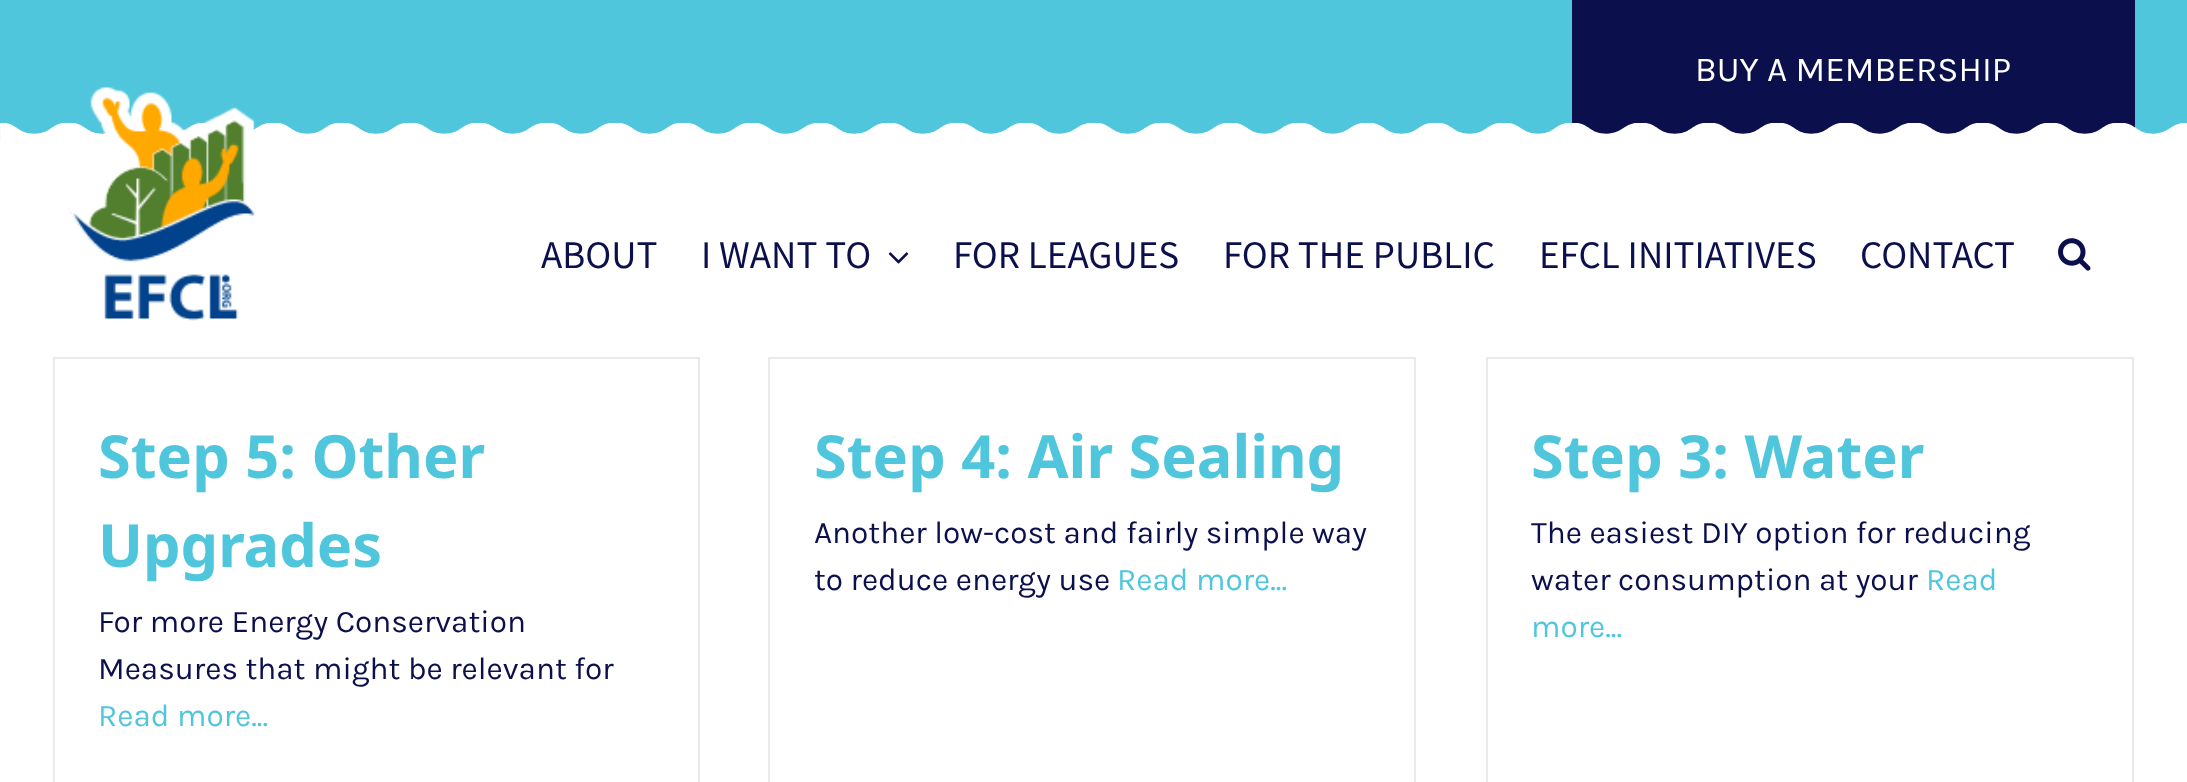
<!DOCTYPE html>
<meta charset="utf-8">
<style>body { margin: 0 } canvas { display: block }</style>
<canvas id="canvas" width="2187" height="782"></canvas>
<img id="img1" src="images/1.png" hidden>
<img id="img2" src="images/2.png" hidden>
<img id="img3" src="images/3.png" hidden>
<img id="img4" src="images/4.png" hidden>
<script>
window.onload = function () {
    const canvas = document.getElementById('canvas');
    const context = canvas.getContext('2d');
    context.miterLimit = 4;
    context.fontKerning = 'normal';

    context.fillStyle = 'rgb(255, 255, 255)';
    context.fillRect(0, 0, 2187, 782);
    context.fillStyle = 'rgb(80, 198, 221)';
    context.fillRect(0, 0, 2187, 140);
    context.fillStyle = 'rgb(11, 16, 77)';
    context.fillRect(1572, 0, 563, 134);
    context.drawImage(document.getElementById('img1'), 0, 123, 2187, 17);
    context.drawImage(document.getElementById('img2'), 68, 87, 187, 234);
    context.drawImage(document.getElementById('img3'), 888, 252, 21, 12);
    context.drawImage(document.getElementById('img4'), 2058, 238, 33, 33);
    context.fillStyle = 'rgb(235, 234, 234)';
    context.fillRect(53, 357, 647, 2);
    context.fillRect(698, 357, 2, 425);
    context.fillRect(53, 357, 2, 425);
    context.fillRect(768, 357, 648, 2);
    context.fillRect(1414, 357, 2, 425);
    context.fillRect(768, 357, 2, 425);
    context.fillRect(1486, 357, 647, 2);
    context.fillRect(2132, 357, 2, 425);
    context.fillRect(1486, 357, 2, 425);
    context.font = '35px Karla';
    context.fillStyle = 'rgb(255, 255, 255)';
    context.fillText('BUY A MEMBERSHIP', 1695, 81);
    context.font = '100 35px Noto Sans TC';
    context.fillStyle = 'rgb(11, 16, 77)';
    context.fillText('ABOUT', 541, 268);
    context.fillText('I WANT TO', 701, 268);
    context.fillText('FOR LEAGUES', 953, 268);
    context.fillText('FOR THE PUBLIC', 1223, 268);
    context.fillText('EFCL INITIATIVES', 1539, 268);
    context.fillText('CONTACT', 1860, 268);
    context.font = 'bold 59.5px Noto Sans';
    context.fillStyle = 'rgb(80, 198, 221)';
    context.fillText('Step 5: Other', 98, 478);
    context.fillText('Upgrades', 98, 567);
    context.font = '31.5px Karla';
    context.fillStyle = 'rgb(11, 16, 77)';
    context.fillText('For more Energy Conservation', 98, 632);
    context.fillText('Measures that might be relevant for', 98, 679);
    context.fillStyle = 'rgb(80, 198, 221)';
    context.fillText('Read more...', 98, 726);
    context.font = 'bold 59.5px Noto Sans';
    context.fillText('Step 4: Air Sealing', 814, 478);
    context.font = '31.5px Karla';
    context.fillStyle = 'rgb(11, 16, 77)';
    context.fillText('Another low-cost and fairly simple way', 814, 543);
    context.fillText('to reduce energy use', 814, 590);
    context.fillStyle = 'rgb(80, 198, 221)';
    context.fillText('Read more...', 1117, 590);
    context.font = 'bold 59.5px Noto Sans';
    context.fillText('Step 3: Water', 1531, 478);
    context.font = '31.5px Karla';
    context.fillStyle = 'rgb(11, 16, 77)';
    context.fillText('The easiest DIY option for reducing', 1531, 543);
    context.fillText('water consumption at your', 1531, 590);
    context.fillStyle = 'rgb(80, 198, 221)';
    context.fillText('Read', 1926, 590);
    context.fillText('more...', 1531, 637);
};
</script>
